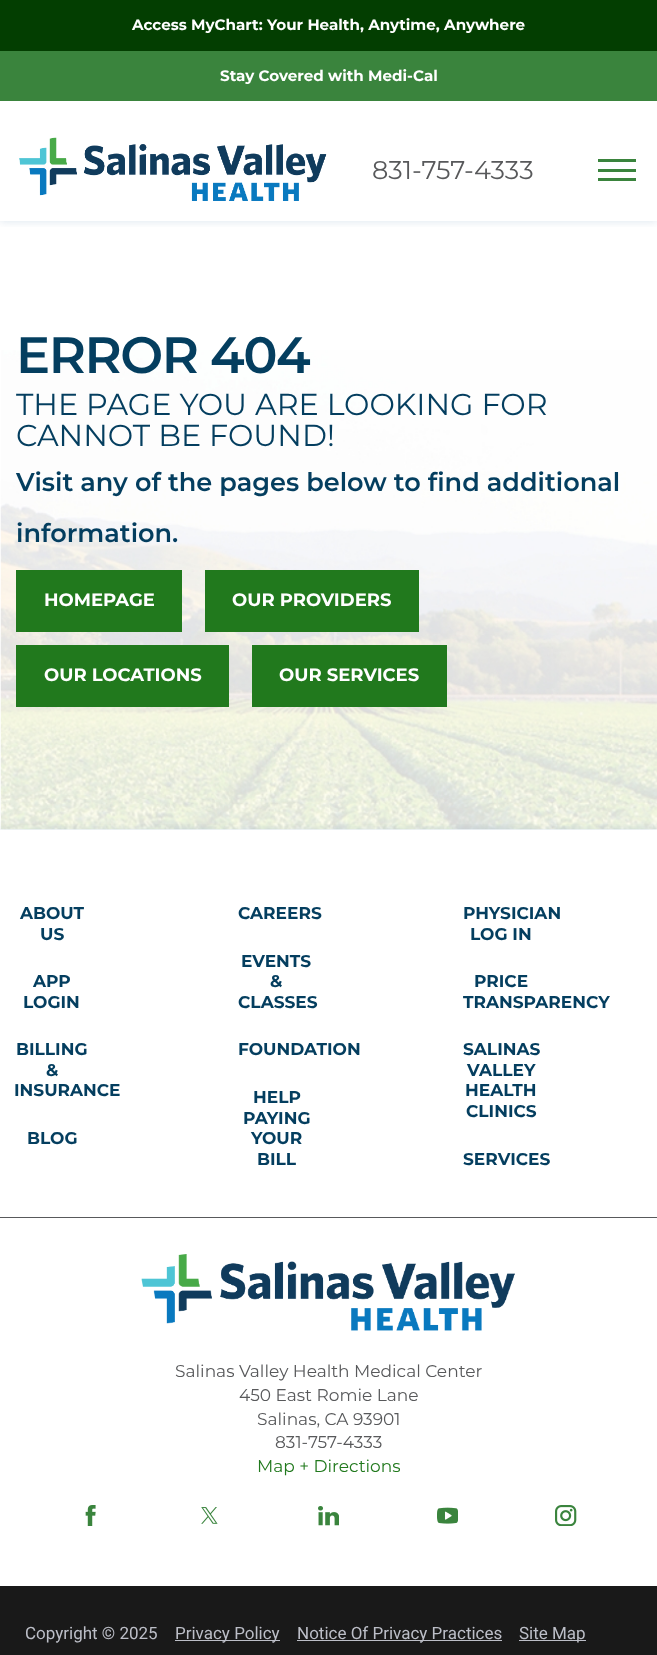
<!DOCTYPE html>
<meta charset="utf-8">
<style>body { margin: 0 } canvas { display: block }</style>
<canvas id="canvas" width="657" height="1655"></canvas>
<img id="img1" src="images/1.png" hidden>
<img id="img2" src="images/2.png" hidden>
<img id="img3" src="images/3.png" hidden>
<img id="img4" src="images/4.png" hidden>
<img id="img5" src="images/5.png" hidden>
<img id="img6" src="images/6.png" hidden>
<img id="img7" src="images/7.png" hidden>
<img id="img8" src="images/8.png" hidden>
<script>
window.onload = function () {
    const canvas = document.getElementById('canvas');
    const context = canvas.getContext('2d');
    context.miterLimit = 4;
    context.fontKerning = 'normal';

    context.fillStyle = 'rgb(255, 255, 255)';
    context.fillRect(0, 0, 657, 1655);
    context.save();
    context.beginPath();
    context.rect(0, 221, 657, 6);
    context.clip();
    context.fillStyle = 'rgba(0, 70, 127, 0.15)';
    context.filter = 'blur(5px)';
    context.beginPath();
    context.rect(0, 0, 657, 221);
    context.fill();
    context.filter = 'none';
    context.restore();
    context.fillStyle = 'rgb(3, 62, 1)';
    context.fillRect(0, 0, 657, 51);
    context.fillStyle = 'rgb(58, 132, 61)';
    context.fillRect(0, 51, 657, 50);
    context.drawImage(document.getElementById('img1'), 19, 137, 308, 64);
    context.fillRect(598, 159, 38, 3);
    context.fillRect(598, 169, 38, 3);
    context.fillRect(598, 178, 38, 3);
    context.drawImage(document.getElementById('img2'), 0, 350, 657, 480);
    context.fillStyle = 'rgb(33, 121, 29)';
    context.fillRect(16, 570, 166, 62);
    context.fillRect(205, 570, 214, 62);
    context.fillRect(16, 645, 213, 62);
    context.fillRect(252, 645, 195, 62);
    context.save();
    context.beginPath();
    context.rect(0, 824, 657, 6);
    context.clip();
    context.fillStyle = 'rgba(0, 70, 127, 0.15)';
    context.filter = 'blur(5px)';
    context.beginPath();
    context.rect(0, 830, 657, 756);
    context.fill();
    context.filter = 'none';
    context.restore();
    context.fillStyle = 'rgb(88, 89, 91)';
    context.fillRect(0, 1217, 657, 1);
    context.drawImage(document.getElementById('img3'), 141, 1254, 374, 77);
    context.drawImage(document.getElementById('img4'), 85, 1505, 11, 21);
    context.drawImage(document.getElementById('img5'), 201, 1507, 17, 17);
    context.drawImage(document.getElementById('img6'), 318, 1506, 21, 20);
    context.drawImage(document.getElementById('img7'), 437, 1507, 21, 17);
    context.drawImage(document.getElementById('img8'), 555, 1505, 22, 21);
    context.fillStyle = 'rgb(25, 25, 25)';
    context.fillRect(0, 1586, 657, 69);
    context.fillStyle = 'rgb(188, 190, 199)';
    context.fillRect(175, 1640, 105, 1);
    context.fillRect(297, 1640, 205, 1);
    context.fillRect(519, 1640, 67, 1);
    context.font = 'bold 15.15px Montserrat';
    context.fillStyle = 'rgb(255, 255, 255)';
    context.fillText('Access MyChart: Your Health, Anytime, Anywhere', 132, 30);
    context.fillText('Stay Covered with Medi-Cal', 220, 81);
    context.font = '25.6px Montserrat';
    context.fillStyle = 'rgb(88, 89, 91)';
    context.fillText('831-757-4333', 372, 179);
    context.letterSpacing = '-1.5px';
    context.font = '600 51px Montserrat';
    context.fillStyle = 'rgb(4, 62, 95)';
    context.fillText('ERROR 404', 16, 373);
    context.letterSpacing = '0px';
    context.font = '30.25px Montserrat';
    context.fillText('THE PAGE YOU ARE LOOKING FOR', 16, 415);
    context.fillText('CANNOT BE FOUND!', 16, 446);
    context.font = '600 25.6px Montserrat';
    context.fillText('Visit any of the pages below to find additional', 16, 491);
    context.fillText('information.', 16, 542);
    context.font = 'bold 18px Montserrat';
    context.fillStyle = 'rgb(255, 255, 255)';
    context.fillText('HOMEPAGE', 44, 606);
    context.fillText('OUR PROVIDERS', 232, 606);
    context.fillText('OUR LOCATIONS', 44, 681);
    context.fillText('OUR SERVICES', 279, 681);
    context.font = 'bold 17px Montserrat';
    context.fillStyle = 'rgb(4, 62, 95)';
    context.fillText('ABOUT', 20, 919);
    context.fillText('US', 40, 940);
    context.fillText('CAREERS', 238, 919);
    context.fillText('PHYSICIAN', 463, 919);
    context.fillText('LOG IN', 470, 940);
    context.fillText('APP', 33, 987);
    context.fillText('LOGIN', 23, 1008);
    context.fillText('EVENTS', 241, 967);
    context.fillText('&', 270, 987);
    context.fillText('CLASSES', 238, 1008);
    context.fillText('PRICE', 474, 987);
    context.fillText('TRANSPARENCY', 463, 1008);
    context.fillText('BILLING', 16, 1055);
    context.fillText('&', 46, 1076);
    context.fillText('INSURANCE', 14, 1096);
    context.fillText('FOUNDATION', 238, 1055);
    context.fillText('SALINAS', 463, 1055);
    context.fillText('VALLEY', 467, 1076);
    context.fillText('HEALTH', 465, 1096);
    context.fillText('CLINICS', 466, 1117);
    context.fillText('BLOG', 27, 1144);
    context.fillText('HELP', 253, 1103);
    context.fillText('PAYING', 243, 1124);
    context.fillText('YOUR', 251, 1144);
    context.fillText('BILL', 257, 1165);
    context.fillText('SERVICES', 463, 1165);
    context.font = '17px Montserrat';
    context.fillStyle = 'rgb(88, 89, 91)';
    context.fillText('Salinas Valley Health Medical Center', 175, 1377);
    context.fillText('450 East Romie Lane', 239, 1401);
    context.fillText('Salinas, CA 93901', 257, 1425);
    context.fillText('831-757-4333', 275, 1448);
    context.fillStyle = 'rgb(33, 121, 29)';
    context.fillText('Map + Directions', 257, 1472);
    context.font = '17px Roboto';
    context.fillStyle = 'rgb(188, 190, 199)';
    context.fillText('Copyright © 2025', 25, 1639);
    context.fillText('Privacy Policy', 175, 1639);
    context.fillText('Notice Of Privacy Practices', 297, 1639);
    context.fillText('Site Map', 519, 1639);
};
</script>
